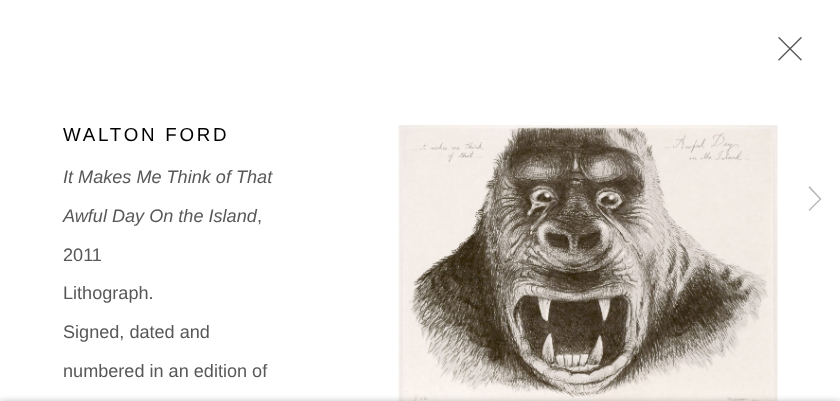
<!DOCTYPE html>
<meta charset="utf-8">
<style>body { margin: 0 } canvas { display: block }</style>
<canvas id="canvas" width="840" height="401"></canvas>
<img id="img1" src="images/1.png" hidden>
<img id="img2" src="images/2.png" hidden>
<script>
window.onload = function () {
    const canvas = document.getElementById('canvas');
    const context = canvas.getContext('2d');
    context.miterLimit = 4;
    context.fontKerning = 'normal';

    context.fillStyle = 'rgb(255, 255, 255)';
    context.fillRect(0, 0, 840, 401);
    context.drawImage(document.getElementById('img1'), 778, 37, 24, 24);
    context.drawImage(document.getElementById('img2'), 398, 125, 380, 276);
    context.fillStyle = 'rgb(185, 185, 185)';
    context.beginPath();
    context.moveTo(821.5, 199);
    context.lineTo(809.5, 186);
    context.lineTo(808.5, 187.5);
    context.lineTo(819.5, 199);
    context.lineTo(808.5, 210);
    context.lineTo(809.5, 211);
    context.closePath();
    context.fill();
    context.fillStyle = 'rgba(0, 0, 0, 0.23)';
    context.filter = 'blur(3px)';
    context.beginPath();
    context.rect(0, 401, 840, 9);
    context.fill();
    context.filter = 'none';
    context.letterSpacing = '2.75px';
    context.font = '18.75px Liberation Sans';
    context.fillStyle = 'rgb(1, 1, 1)';
    context.fillText('WALTON FORD', 63, 141);
    context.letterSpacing = '0px';
    context.font = 'italic 18.1px Liberation Sans';
    context.fillStyle = 'rgb(88, 88, 88)';
    context.fillText('It Makes Me Think of That', 63, 183);
    context.fillText('Awful Day On the Island', 63, 222);
    context.font = '18.1px Liberation Sans';
    context.fillText(',', 257, 222);
    context.fillText('2011', 63, 261);
    context.fillText('Lithograph.', 63, 299);
    context.fillText('Signed, dated and', 63, 338);
    context.fillText('numbered in an edition of', 63, 377);
};
</script>
